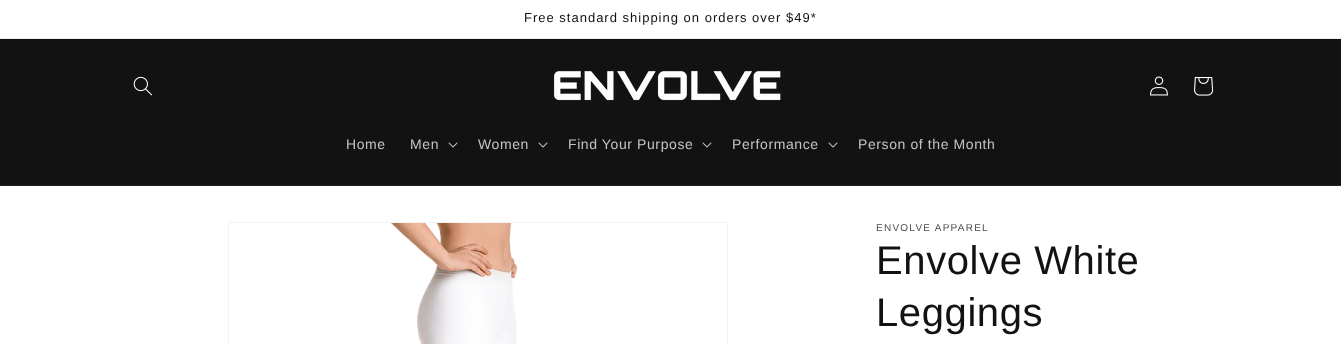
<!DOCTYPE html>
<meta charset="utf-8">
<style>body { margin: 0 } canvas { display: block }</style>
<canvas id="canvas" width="1341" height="344"></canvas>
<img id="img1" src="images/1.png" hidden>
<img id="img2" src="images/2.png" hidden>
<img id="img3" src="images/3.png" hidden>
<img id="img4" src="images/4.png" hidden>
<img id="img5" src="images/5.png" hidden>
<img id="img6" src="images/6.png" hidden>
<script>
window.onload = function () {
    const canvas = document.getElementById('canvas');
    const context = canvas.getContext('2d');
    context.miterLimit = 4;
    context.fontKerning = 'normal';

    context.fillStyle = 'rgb(255, 255, 255)';
    context.fillRect(0, 0, 1341, 344);
    context.fillStyle = 'rgb(236, 236, 236)';
    context.fillRect(0, 38, 1341, 1);
    context.fillStyle = 'rgb(18, 18, 18)';
    context.fillRect(0, 39, 1341, 146);
    context.fillStyle = 'rgb(37, 37, 37)';
    context.fillRect(0, 185, 1341, 1);
    context.drawImage(document.getElementById('img1'), 133, 76, 19, 20);
    context.drawImage(document.getElementById('img2'), 553, 70, 228, 31);
    context.drawImage(document.getElementById('img3'), 1150, 76, 18, 20);
    context.drawImage(document.getElementById('img4'), 1194, 77, 20, 19);
    context.drawImage(document.getElementById('img5'), 448, 142, 10, 6);
    context.drawImage(document.getElementById('img5'), 538, 142, 10, 6);
    context.drawImage(document.getElementById('img5'), 702, 142, 10, 6);
    context.drawImage(document.getElementById('img5'), 828, 142, 10, 6);
    context.strokeStyle = 'rgb(243, 243, 243)';
    context.strokeRect(228.5, 222.5, 499, 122);
    context.drawImage(document.getElementById('img6'), 391, 223, 126, 121);
    context.letterSpacing = '1px';
    context.font = '13px Liberation Sans';
    context.fillStyle = 'rgb(18, 18, 18)';
    context.fillText('Free standard shipping on orders over $49*', 524, 22);
    context.letterSpacing = '0.6px';
    context.font = '14px Liberation Sans';
    context.fillStyle = 'rgb(196, 196, 196)';
    context.fillText('Home', 346, 149);
    context.fillText('Men', 410, 149);
    context.fillText('Women', 478, 149);
    context.fillText('Find Your Purpose', 568, 149);
    context.fillText('Performance', 732, 149);
    context.fillText('Person of the Month', 858, 149);
    context.letterSpacing = '1.25px';
    context.font = '10px Liberation Sans';
    context.fillStyle = 'rgb(77, 77, 77)';
    context.fillText('ENVOLVE APPAREL', 876, 231);
    context.letterSpacing = '0.6px';
    context.font = '40px Liberation Sans';
    context.fillStyle = 'rgb(18, 18, 18)';
    context.fillText('Envolve White', 876, 274);
    context.fillText('Leggings', 876, 326);
};
</script>
